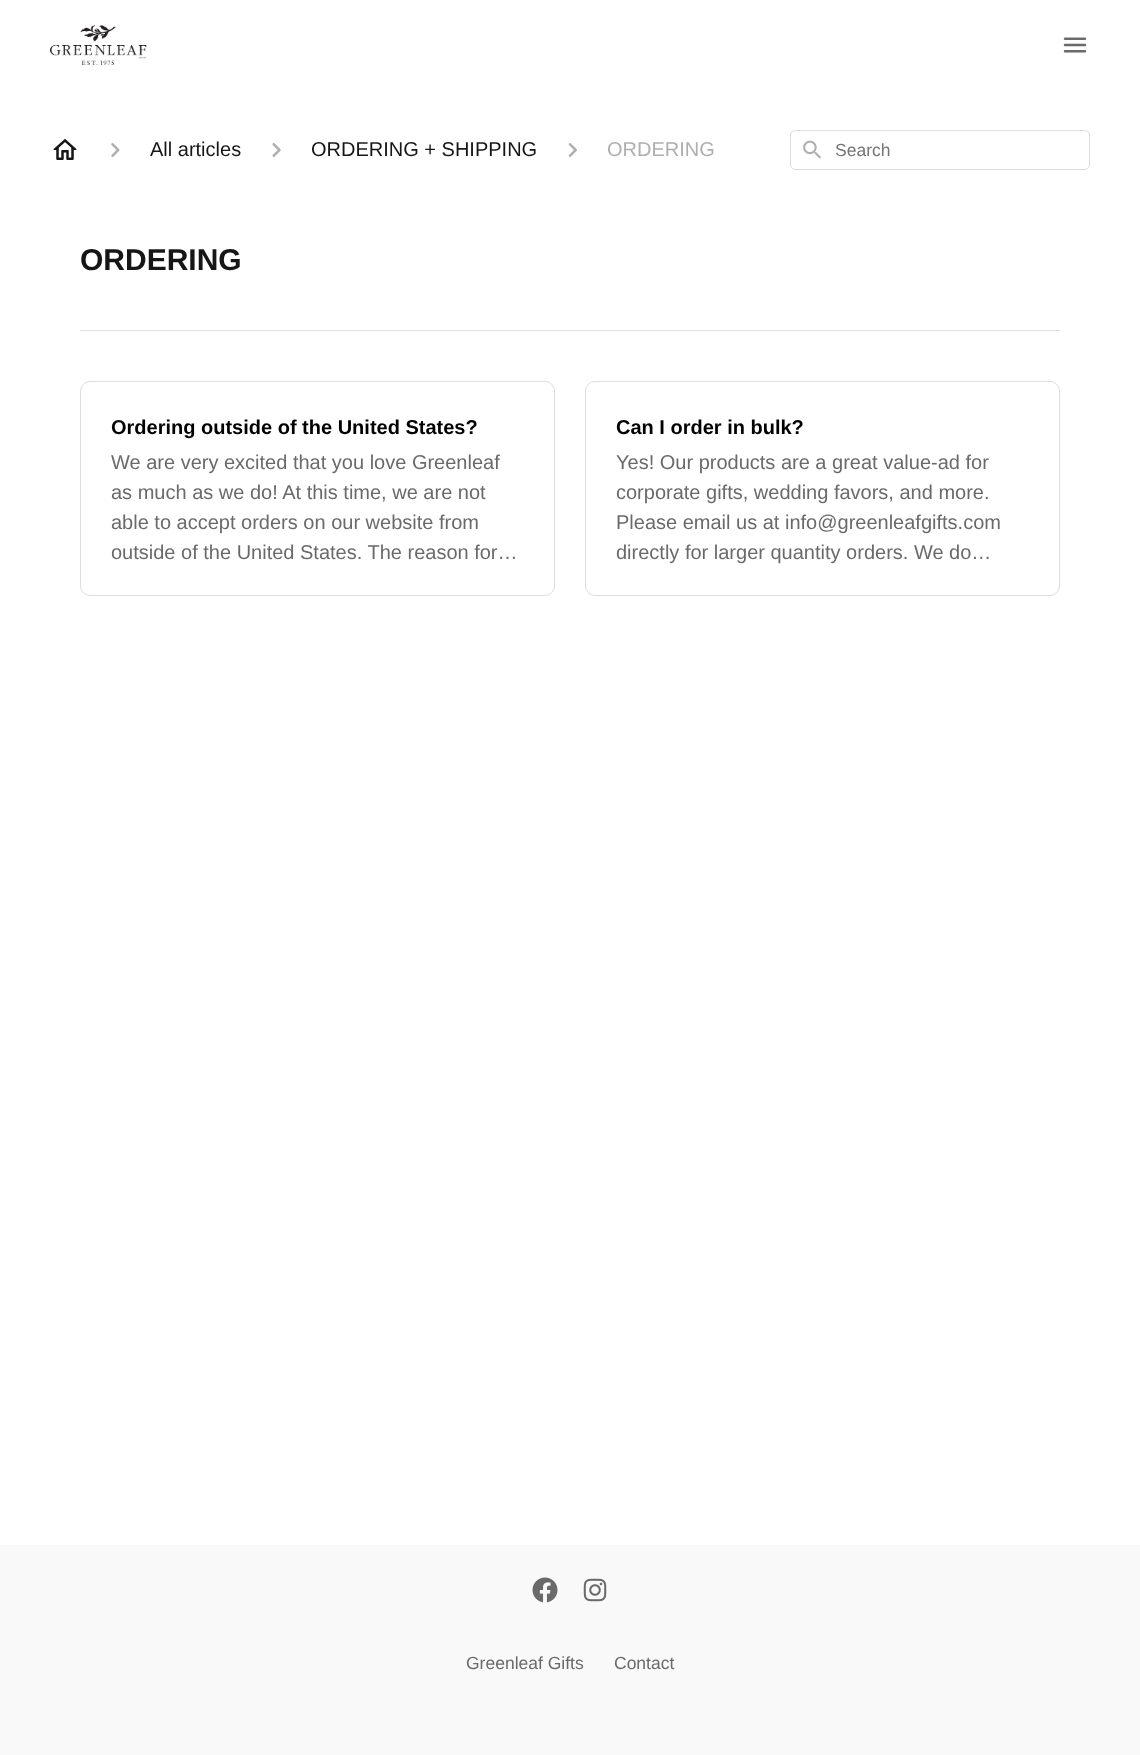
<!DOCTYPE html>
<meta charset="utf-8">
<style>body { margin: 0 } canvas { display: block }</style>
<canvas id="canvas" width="1140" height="1755"></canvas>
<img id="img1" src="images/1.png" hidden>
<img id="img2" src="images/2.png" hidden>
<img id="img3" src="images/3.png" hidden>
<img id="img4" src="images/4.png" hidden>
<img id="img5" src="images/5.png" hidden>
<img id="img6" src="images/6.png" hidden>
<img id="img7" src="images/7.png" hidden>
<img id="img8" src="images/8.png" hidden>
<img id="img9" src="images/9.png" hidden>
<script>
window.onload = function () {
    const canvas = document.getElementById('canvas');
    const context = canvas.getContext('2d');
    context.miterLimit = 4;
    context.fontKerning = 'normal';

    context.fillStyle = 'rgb(255, 255, 255)';
    context.fillRect(0, 0, 1140, 1755);
    context.drawImage(document.getElementById('img1'), 50, 25, 97, 40);
    context.drawImage(document.getElementById('img2'), 1063, 37, 24, 16);
    context.drawImage(document.getElementById('img3'), 53, 139, 24, 21);
    context.drawImage(document.getElementById('img4'), 111, 143, 9, 14);
    context.drawImage(document.getElementById('img5'), 272, 143, 9, 14);
    context.drawImage(document.getElementById('img6'), 568, 143, 9, 14);
    context.beginPath();
    context.roundRect(790.5, 130.5, 299, 39, 4.5);
    context.strokeStyle = 'rgb(221, 221, 221)';
    context.stroke();
    context.drawImage(document.getElementById('img7'), 803, 140, 18, 19);
    context.fillStyle = 'rgb(221, 221, 221)';
    context.fillRect(80, 330, 980, 1);
    context.beginPath();
    context.roundRect(80.5, 381.5, 474, 214, 9.5);
    context.stroke();
    context.beginPath();
    context.roundRect(585.5, 381.5, 474, 214, 9.5);
    context.stroke();
    context.fillStyle = 'rgb(249, 249, 249)';
    context.fillRect(0, 1545, 1140, 210);
    context.drawImage(document.getElementById('img8'), 532, 1577, 26, 26);
    context.drawImage(document.getElementById('img9'), 583, 1578, 24, 24);
    context.font = '20px Liberation Sans';
    context.fillStyle = 'rgb(22, 22, 22)';
    context.fillText('All articles', 150, 156);
    context.fillText('ORDERING + SHIPPING', 311, 156);
    context.fillStyle = 'rgb(175, 175, 175)';
    context.fillText('ORDERING', 607, 156);
    context.font = '17.5px Liberation Sans';
    context.fillStyle = 'rgb(117, 117, 117)';
    context.fillText('Search', 835, 156);
    context.font = 'bold 30px Liberation Sans';
    context.fillStyle = 'rgb(22, 22, 22)';
    context.fillText('ORDERING', 80, 270);
    context.font = 'bold 20px Liberation Sans';
    context.fillStyle = 'rgb(0, 0, 0)';
    context.fillText('Ordering outside of the United States?', 111, 434);
    context.font = '20px Liberation Sans';
    context.fillStyle = 'rgb(106, 106, 106)';
    context.fillText('We are very excited that you love Greenleaf', 111, 469);
    context.fillText('as much as we do! At this time, we are not', 111, 499);
    context.fillText('able to accept orders on our website from', 111, 529);
    context.fillText('outside of the United States. The reason for…', 111, 559);
    context.font = 'bold 20px Liberation Sans';
    context.fillStyle = 'rgb(0, 0, 0)';
    context.fillText('Can I order in bulk?', 616, 434);
    context.font = '20px Liberation Sans';
    context.fillStyle = 'rgb(106, 106, 106)';
    context.fillText('Yes! Our products are a great value-ad for', 616, 469);
    context.fillText('corporate gifts, wedding favors, and more.', 616, 499);
    context.fillText('Please email us at info@greenleafgifts.com', 616, 529);
    context.fillText('directly for larger quantity orders. We do…', 616, 559);
    context.font = '17.5px Liberation Sans';
    context.fillText('Greenleaf Gifts', 466, 1669);
    context.fillText('Contact', 614, 1669);
};
</script>
